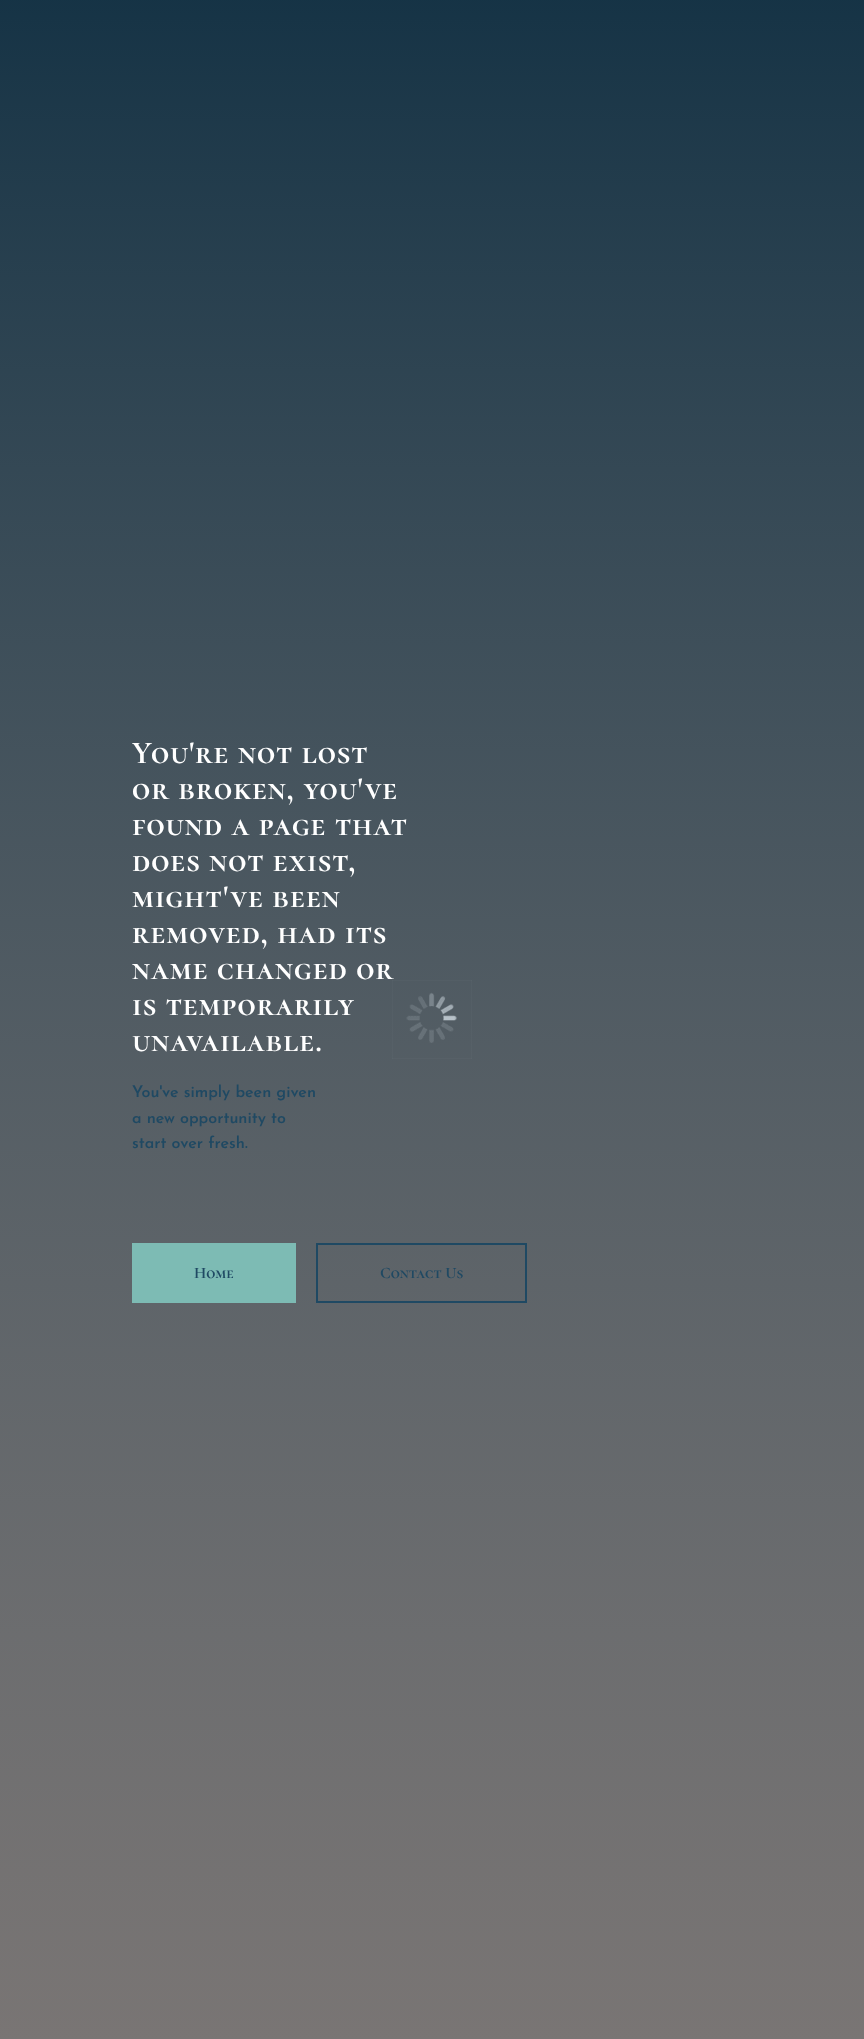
<!DOCTYPE html>
<meta charset="utf-8">
<style>body { margin: 0 } canvas { display: block }</style>
<canvas id="canvas" width="864" height="2039"></canvas>
<img id="img1" src="images/1.png" hidden>
<script>
window.onload = function () {
    const canvas = document.getElementById('canvas');
    const context = canvas.getContext('2d');
    context.miterLimit = 4;
    context.fontKerning = 'normal';
    let gradient;

    context.fillStyle = 'rgb(0, 0, 0)';
    context.fillRect(0, 0, 864, 2039);
    context.drawImage(document.getElementById('img1'), 392, 980, 80, 79);
    gradient = context.createLinearGradient(432, 0, 432, 2039);
    gradient.addColorStop(0, 'rgba(31, 73, 99, 0.7)');
    gradient.addColorStop(1, 'rgba(241, 233, 231, 0.5)');
    context.fillStyle = gradient;
    context.fillRect(0, 0, 864, 2039);
    context.fillStyle = 'rgb(125, 187, 180)';
    context.fillRect(132, 1243, 164, 60);
    context.strokeStyle = 'rgb(31, 73, 99)';
    context.lineWidth = 2;
    context.strokeRect(317, 1244, 209, 58);
    context.letterSpacing = '1px';
    context.font = 'bold 32px Cormorant SC';
    context.fillStyle = 'rgb(255, 255, 255)';
    context.fillText('You\'re not lost', 132, 763);
    context.fillText('or broken, you\'ve', 132, 799);
    context.fillText('found a page that', 132, 835);
    context.fillText('does not exist,', 132, 871);
    context.fillText('might\'ve been', 132, 907);
    context.fillText('removed, had its', 132, 943);
    context.fillText('name changed or', 132, 979);
    context.fillText('is temporarily', 132, 1015);
    context.fillText('unavailable.', 132, 1051);
    context.letterSpacing = '0px';
    context.font = '100 16px Josefin Sans';
    context.fillStyle = 'rgb(31, 73, 99)';
    context.fillText('You\'ve simply been given', 132, 1097);
    context.fillText('a new opportunity to', 132, 1123);
    context.fillText('start over fresh.', 132, 1148);
    context.font = 'bold 16px Cormorant SC';
    context.fillText('Home', 194, 1278);
    context.fillText('Contact Us', 380, 1278);
};
</script>
